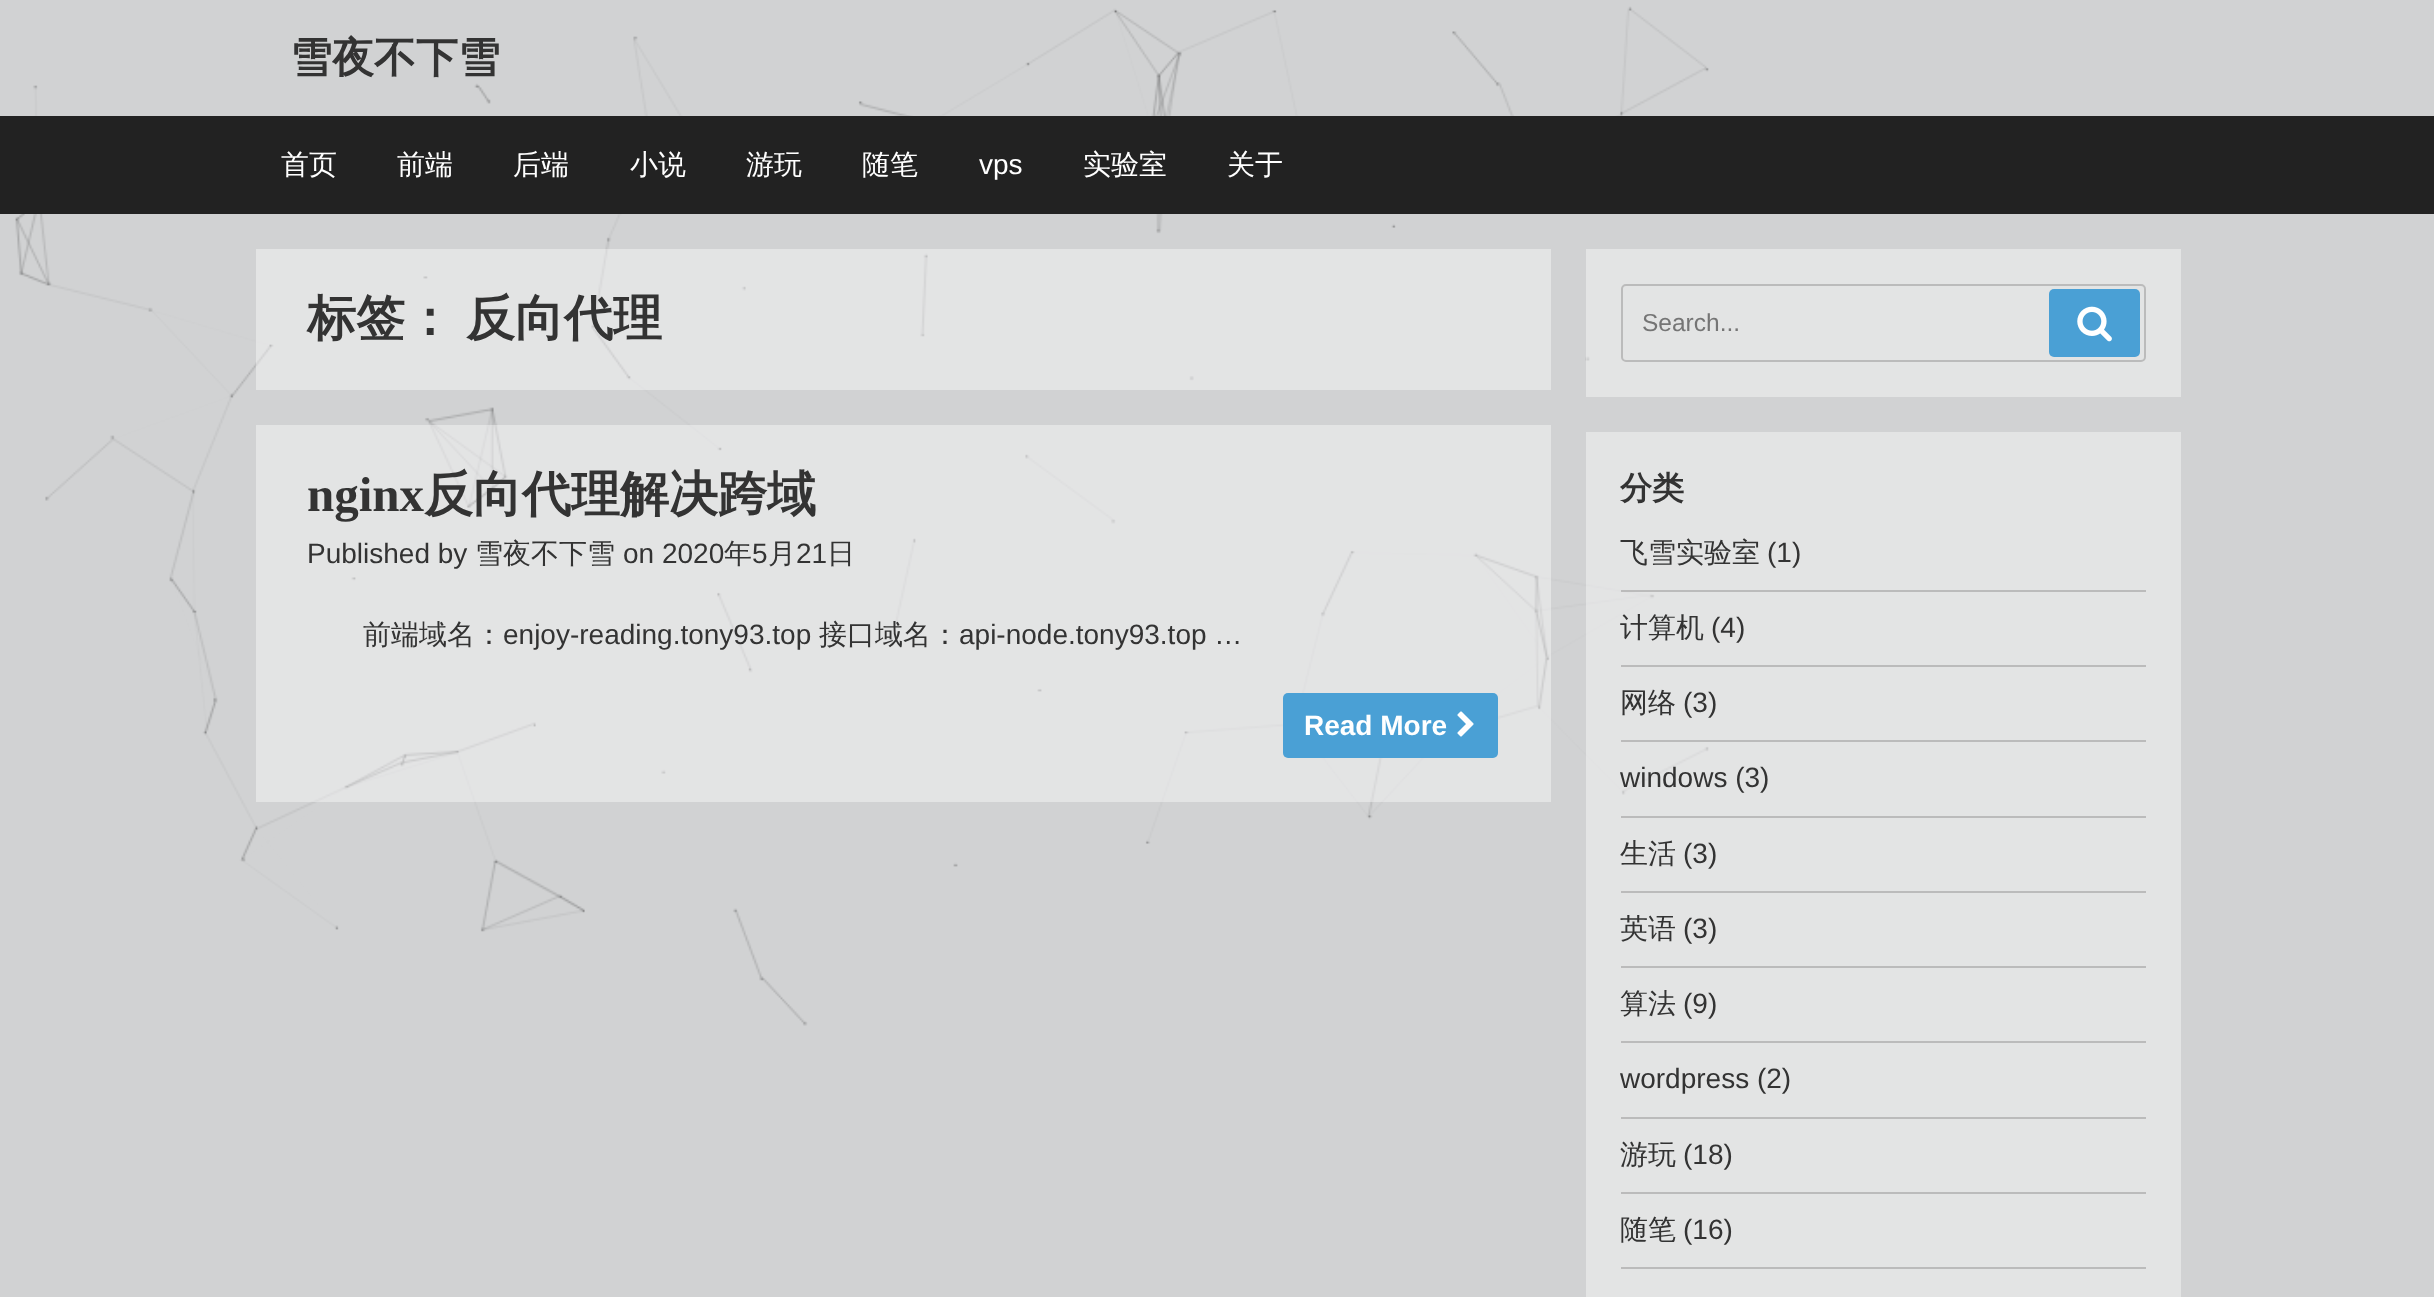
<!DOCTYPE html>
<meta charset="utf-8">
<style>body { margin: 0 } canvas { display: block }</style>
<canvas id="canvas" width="2434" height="1297"></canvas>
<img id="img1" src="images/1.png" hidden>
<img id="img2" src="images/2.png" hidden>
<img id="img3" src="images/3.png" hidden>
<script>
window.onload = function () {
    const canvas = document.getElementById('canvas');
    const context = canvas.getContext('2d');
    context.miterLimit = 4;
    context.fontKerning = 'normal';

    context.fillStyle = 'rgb(209, 210, 211)';
    context.fillRect(0, 0, 2434, 1297);
    context.drawImage(document.getElementById('img1'), 15, 6, 1694, 1020);
    context.fillStyle = 'rgb(34, 34, 34)';
    context.fillRect(0, 116, 2434, 98);
    context.fillStyle = 'rgba(255, 255, 255, 0.4)';
    context.fillRect(256, 249, 1295, 141);
    context.fillRect(256, 425, 1295, 377);
    context.fillStyle = 'rgb(74, 160, 213)';
    context.beginPath();
    context.roundRect(1283, 693, 215, 65, 5);
    context.fill();
    context.drawImage(document.getElementById('img2'), 1457, 711, 17, 26);
    context.fillStyle = 'rgba(255, 255, 255, 0.4)';
    context.fillRect(1586, 249, 595, 148);
    context.beginPath();
    context.roundRect(1622, 285, 523, 76, 4);
    context.strokeStyle = 'rgb(187, 187, 187)';
    context.lineWidth = 2;
    context.stroke();
    context.fillStyle = 'rgb(74, 160, 213)';
    context.beginPath();
    context.roundRect(2049, 289, 91, 68, 5);
    context.fill();
    context.drawImage(document.getElementById('img3'), 2077, 306, 35, 36);
    context.fillStyle = 'rgba(255, 255, 255, 0.4)';
    context.fillRect(1586, 432, 595, 865);
    context.fillStyle = 'rgb(187, 187, 187)';
    context.fillRect(1621, 590, 525, 2);
    context.fillRect(1621, 665, 525, 2);
    context.fillRect(1621, 740, 525, 2);
    context.fillRect(1621, 816, 525, 2);
    context.fillRect(1621, 891, 525, 2);
    context.fillRect(1621, 966, 525, 2);
    context.fillRect(1621, 1041, 525, 2);
    context.fillRect(1621, 1117, 525, 2);
    context.fillRect(1621, 1192, 525, 2);
    context.fillRect(1621, 1267, 525, 2);
    context.font = 'bold 42px WenQuanYi Zen Hei';
    context.fillStyle = 'rgb(51, 51, 51)';
    context.fillText('雪夜不下雪', 290, 72);
    context.font = '500 28px WenQuanYi Zen Hei';
    context.fillStyle = 'rgb(255, 255, 255)';
    context.fillText('首页', 281, 174);
    context.fillText('前端', 397, 174);
    context.fillText('后端', 513, 174);
    context.fillText('小说', 630, 174);
    context.fillText('游玩', 746, 174);
    context.fillText('随笔', 862, 174);
    context.font = '28px Liberation Sans';
    context.fillText('vps', 979, 174);
    context.font = '500 28px WenQuanYi Zen Hei';
    context.fillText('实验室', 1083, 174);
    context.fillText('关于', 1227, 174);
    context.font = 'bold 49px WenQuanYi Zen Hei';
    context.fillStyle = 'rgb(51, 51, 51)';
    context.fillText('标签：', 307, 335);
    context.fillText('反向代理', 466, 335);
    context.font = 'bold 49px Liberation Serif';
    context.fillText('nginx', 307, 511);
    context.font = 'bold 49px WenQuanYi Zen Hei';
    context.fillText('反向代理解决跨域', 424, 511);
    context.font = '28px Liberation Sans';
    context.fillText('Published by', 307, 563);
    context.font = '500 28px WenQuanYi Zen Hei';
    context.fillText('雪夜不下雪', 475, 563);
    context.font = '28px Liberation Sans';
    context.fillText('on 2020', 623, 563);
    context.font = '500 28px WenQuanYi Zen Hei';
    context.fillText('年', 724, 563);
    context.font = '28px Liberation Sans';
    context.fillText('5', 752, 563);
    context.font = '500 28px WenQuanYi Zen Hei';
    context.fillText('月', 768, 563);
    context.font = '28px Liberation Sans';
    context.fillText('21', 796, 563);
    context.font = '500 28px WenQuanYi Zen Hei';
    context.fillText('日', 827, 563);
    context.fillText('前端域名：', 363, 644);
    context.font = '28px Liberation Sans';
    context.fillText('enjoy-reading.tony93.top', 503, 644);
    context.font = '500 28px WenQuanYi Zen Hei';
    context.fillText('接口域名：', 819, 644);
    context.font = '28px Liberation Sans';
    context.fillText('api-node.tony93.top …', 959, 644);
    context.font = 'bold 28px Liberation Sans';
    context.fillStyle = 'rgb(255, 255, 255)';
    context.fillText('Read More', 1304, 735);
    context.font = '24.5px Liberation Sans';
    context.fillStyle = 'rgb(117, 117, 117)';
    context.fillText('Search...', 1642, 331);
    context.font = 'bold 32px WenQuanYi Zen Hei';
    context.fillStyle = 'rgb(51, 51, 51)';
    context.fillText('分类', 1620, 499);
    context.font = '500 28px WenQuanYi Zen Hei';
    context.fillText('飞雪实验室', 1620, 562);
    context.font = '28px Liberation Sans';
    context.fillText('(1)', 1767, 562);
    context.font = '500 28px WenQuanYi Zen Hei';
    context.fillText('计算机', 1620, 637);
    context.font = '28px Liberation Sans';
    context.fillText('(4)', 1711, 637);
    context.font = '500 28px WenQuanYi Zen Hei';
    context.fillText('网络', 1620, 712);
    context.font = '28px Liberation Sans';
    context.fillText('(3)', 1683, 712);
    context.fillText('windows (3)', 1620, 787);
    context.font = '500 28px WenQuanYi Zen Hei';
    context.fillText('生活', 1620, 863);
    context.font = '28px Liberation Sans';
    context.fillText('(3)', 1683, 863);
    context.font = '500 28px WenQuanYi Zen Hei';
    context.fillText('英语', 1620, 938);
    context.font = '28px Liberation Sans';
    context.fillText('(3)', 1683, 938);
    context.font = '500 28px WenQuanYi Zen Hei';
    context.fillText('算法', 1620, 1013);
    context.font = '28px Liberation Sans';
    context.fillText('(9)', 1683, 1013);
    context.fillText('wordpress (2)', 1620, 1088);
    context.font = '500 28px WenQuanYi Zen Hei';
    context.fillText('游玩', 1620, 1164);
    context.font = '28px Liberation Sans';
    context.fillText('(18)', 1683, 1164);
    context.font = '500 28px WenQuanYi Zen Hei';
    context.fillText('随笔', 1620, 1239);
    context.font = '28px Liberation Sans';
    context.fillText('(16)', 1683, 1239);
};
</script>
